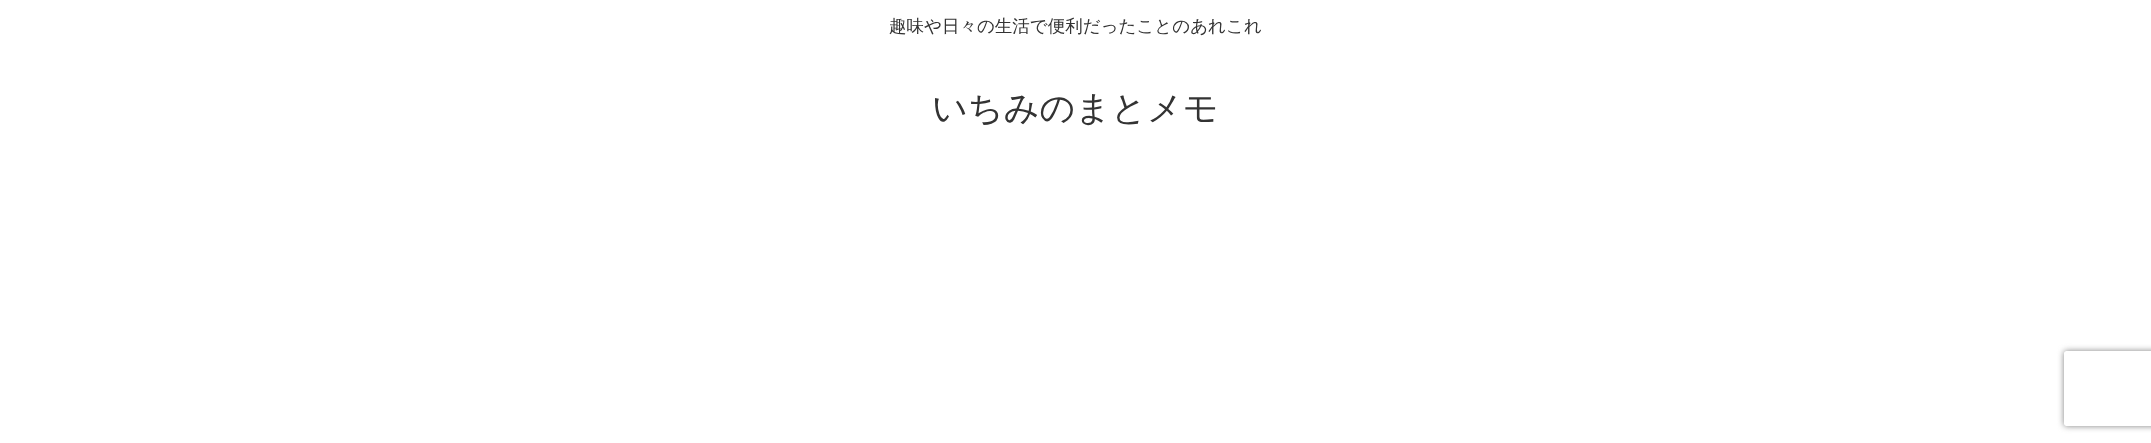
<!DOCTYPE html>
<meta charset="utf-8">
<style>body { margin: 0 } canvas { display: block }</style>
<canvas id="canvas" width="2151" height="443"></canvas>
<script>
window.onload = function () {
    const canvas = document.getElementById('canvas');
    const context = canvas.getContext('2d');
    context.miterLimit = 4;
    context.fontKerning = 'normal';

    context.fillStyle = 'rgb(255, 255, 255)';
    context.fillRect(0, 0, 2151, 443);
    context.save();
    context.beginPath();
    context.moveTo(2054, 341);
    context.lineTo(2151, 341);
    context.lineTo(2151, 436);
    context.lineTo(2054, 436);
    context.closePath();
    context.moveTo(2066.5, 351);
    context.lineTo(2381.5, 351);
    context.bezierCurveTo(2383, 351, 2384, 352, 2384, 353.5);
    context.lineTo(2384, 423.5);
    context.bezierCurveTo(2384, 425, 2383, 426, 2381.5, 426);
    context.lineTo(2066.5, 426);
    context.bezierCurveTo(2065, 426, 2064, 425, 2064, 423.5);
    context.lineTo(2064, 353.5);
    context.bezierCurveTo(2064, 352, 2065, 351, 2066.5, 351);
    context.closePath();
    context.clip('evenodd');
    context.fillStyle = 'rgb(128, 128, 128)';
    context.filter = 'blur(3px)';
    context.beginPath();
    context.roundRect(2064, 351, 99, 75, 2.5);
    context.fill();
    context.filter = 'none';
    context.restore();
    context.font = '500 17.5px WenQuanYi Zen Hei';
    context.fillStyle = 'rgb(51, 51, 51)';
    context.fillText('趣味や日々の生活で便利だったことのあれこれ', 889, 32);
    context.font = '500 35px WenQuanYi Zen Hei';
    context.fillText('いちみのまとメモ', 932, 120);
};
</script>
